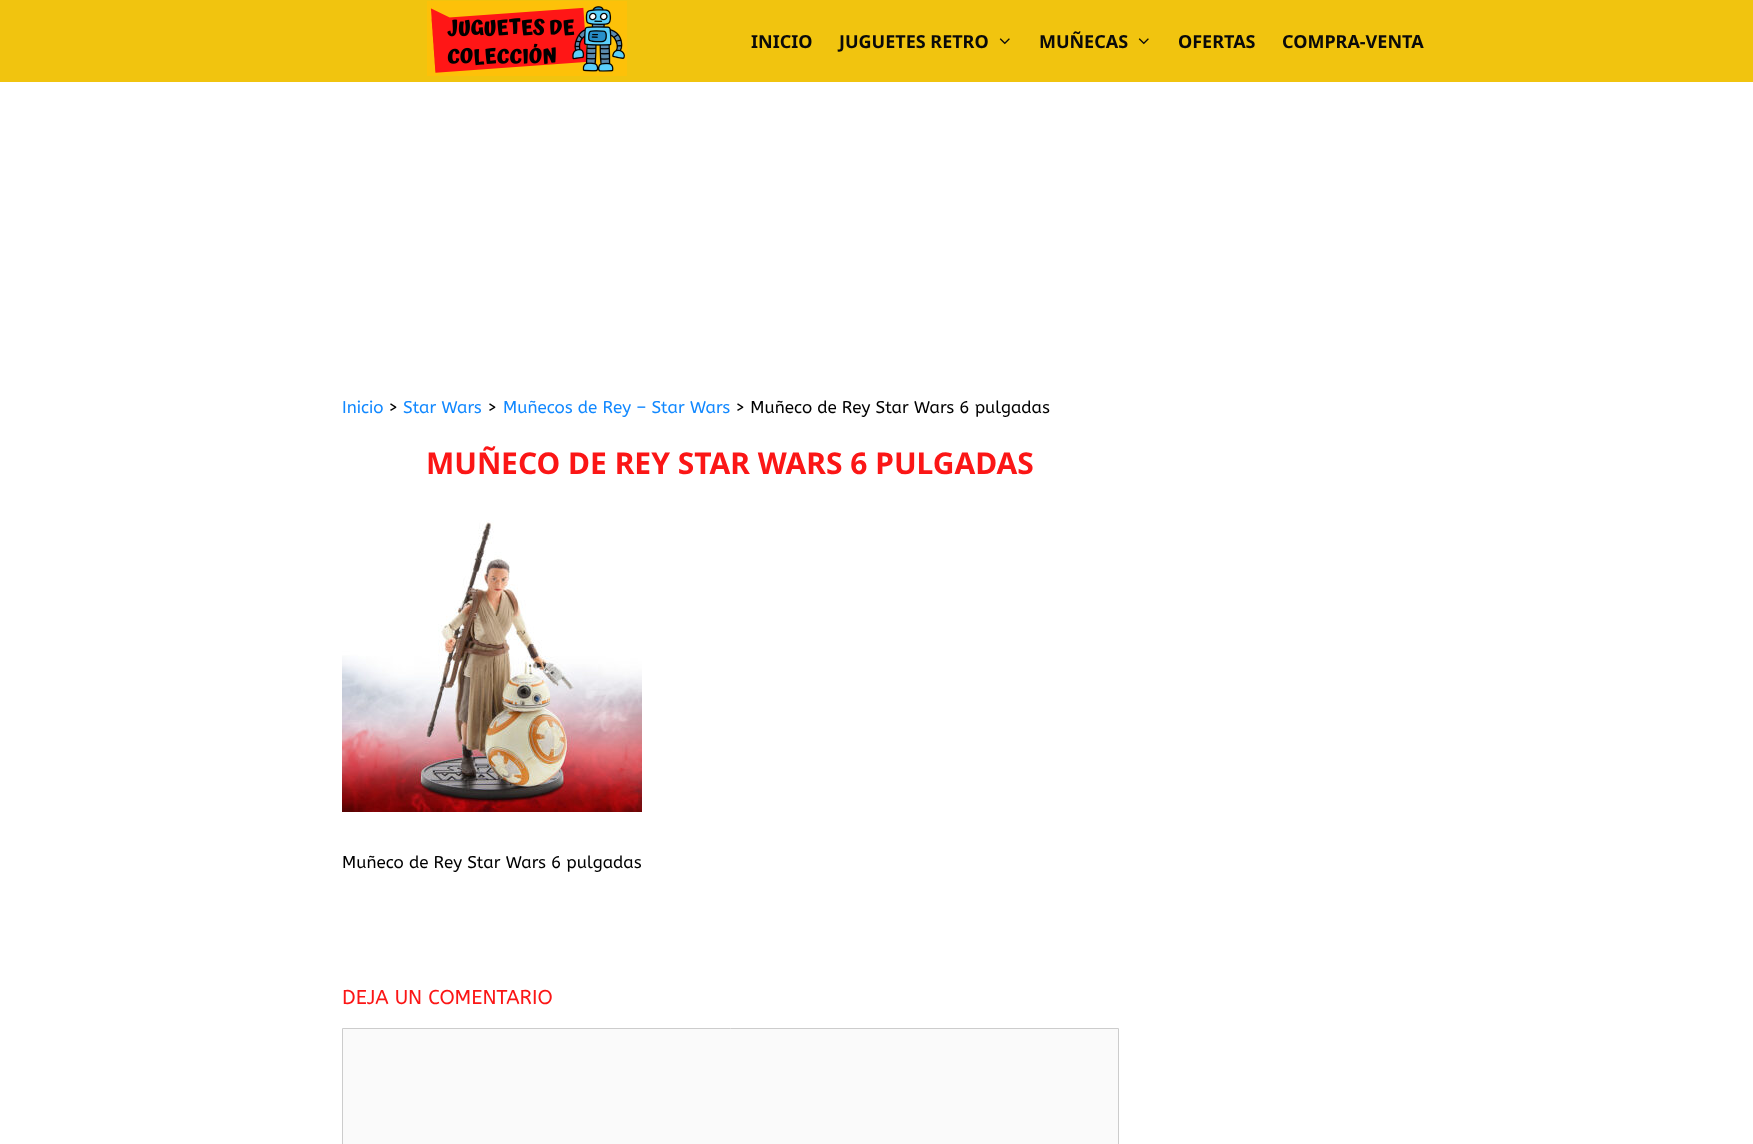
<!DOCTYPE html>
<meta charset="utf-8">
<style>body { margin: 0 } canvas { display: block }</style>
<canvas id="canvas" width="1753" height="1144"></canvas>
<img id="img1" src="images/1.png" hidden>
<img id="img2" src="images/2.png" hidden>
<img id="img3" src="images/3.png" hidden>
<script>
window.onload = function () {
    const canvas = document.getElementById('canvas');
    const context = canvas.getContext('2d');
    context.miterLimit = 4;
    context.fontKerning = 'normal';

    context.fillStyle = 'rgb(255, 255, 255)';
    context.fillRect(0, 0, 1753, 1144);
    context.fillStyle = 'rgb(241, 196, 15)';
    context.fillRect(0, 0, 1753, 82);
    context.drawImage(document.getElementById('img1'), 427, 1, 200, 75);
    context.drawImage(document.getElementById('img2'), 999, 38, 11, 7);
    context.drawImage(document.getElementById('img2'), 1138, 38, 11, 7);
    context.drawImage(document.getElementById('img3'), 342, 520, 300, 292);
    context.fillStyle = 'rgb(250, 250, 250)';
    context.beginPath();
    context.rect(342.5, 1028.5, 776, 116);
    context.fill();
    context.strokeStyle = 'rgb(204, 204, 204)';
    context.stroke();
    context.font = 'bold 18px Noto Sans';
    context.fillStyle = 'rgb(10, 10, 10)';
    context.fillText('INICIO', 751, 48);
    context.fillText('JUGUETES RETRO', 839, 48);
    context.fillText('MUÑECAS', 1039, 48);
    context.fillText('OFERTAS', 1178, 48);
    context.fillText('COMPRA-VENTA', 1282, 48);
    context.font = '17px ABeeZee';
    context.fillStyle = 'rgb(17, 136, 255)';
    context.fillText('Inicio', 342, 413);
    context.fillStyle = 'rgb(0, 0, 0)';
    context.fillText('>', 388, 413);
    context.fillStyle = 'rgb(17, 136, 255)';
    context.fillText('Star Wars', 403, 413);
    context.fillStyle = 'rgb(0, 0, 0)';
    context.fillText('>', 487, 413);
    context.fillStyle = 'rgb(17, 136, 255)';
    context.fillText('Muñecos de Rey – Star Wars', 503, 413);
    context.fillStyle = 'rgb(0, 0, 0)';
    context.fillText('> Muñeco de Rey Star Wars 6 pulgadas', 735, 413);
    context.font = 'bold 30px Noto Sans';
    context.fillStyle = 'rgb(251, 22, 22)';
    context.fillText('MUÑECO DE REY STAR WARS 6 PULGADAS', 426, 474);
    context.font = '17px ABeeZee';
    context.fillStyle = 'rgb(0, 0, 0)';
    context.fillText('Muñeco de Rey Star Wars 6 pulgadas', 342, 868);
    context.font = '20px ABeeZee';
    context.fillStyle = 'rgb(251, 22, 22)';
    context.fillText('DEJA UN COMENTARIO', 342, 1004);
};
</script>
